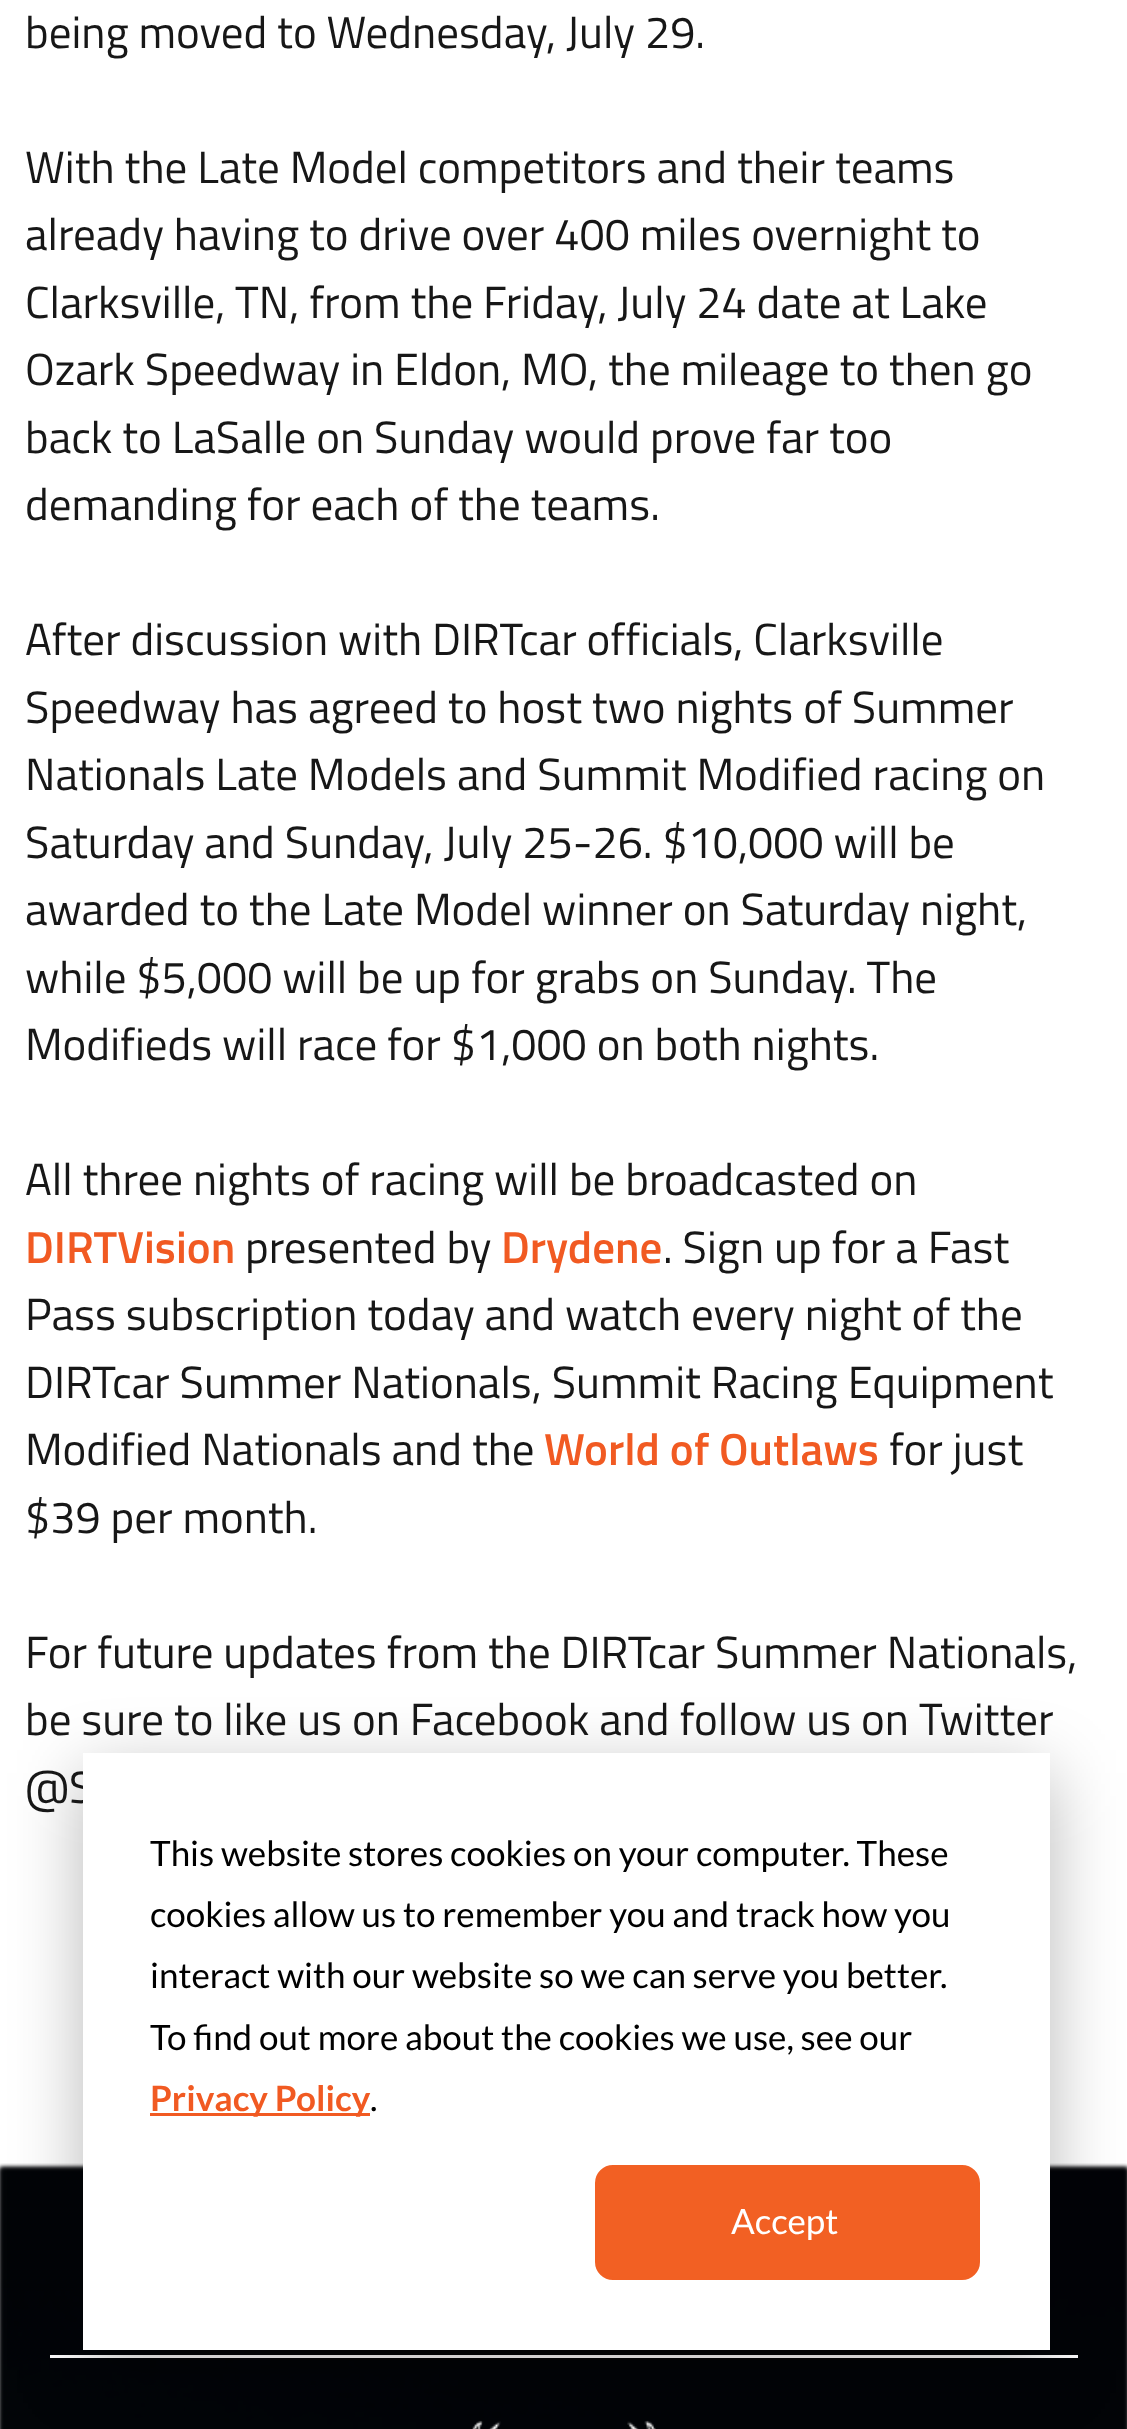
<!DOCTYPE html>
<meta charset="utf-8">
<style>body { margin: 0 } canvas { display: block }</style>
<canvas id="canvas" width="1127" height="2429"></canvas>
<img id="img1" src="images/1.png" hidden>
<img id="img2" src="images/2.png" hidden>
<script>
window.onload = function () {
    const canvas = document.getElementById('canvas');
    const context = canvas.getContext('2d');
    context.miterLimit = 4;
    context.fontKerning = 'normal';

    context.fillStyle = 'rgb(255, 255, 255)';
    context.fillRect(0, 0, 1127, 2429);
    context.fillStyle = 'rgb(23, 23, 23)';
    context.filter = 'blur(2px)';
    context.beginPath();
    context.rect(0, 2168, 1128, 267);
    context.fill();
    context.filter = 'none';
    context.drawImage(document.getElementById('img1'), 0, 2163, 1127, 266);
    context.fillStyle = 'rgb(255, 255, 255)';
    context.fillRect(50, 2355, 1028, 3);
    context.drawImage(document.getElementById('img2'), 472, 2420, 184, 9);
    context.fillStyle = 'rgba(0, 0, 0, 0.28)';
    context.filter = 'blur(35px)';
    context.beginPath();
    context.rect(83, 1773, 967, 597);
    context.fill();
    context.filter = 'none';
    context.font = '45px Titillium Web';
    context.fillStyle = 'rgb(23, 23, 23)';
    context.fillText('being moved to Wednesday, July 29.', 25, 48);
    context.fillText('With the Late Model competitors and their teams', 25, 183);
    context.fillText('already having to drive over 400 miles overnight to', 25, 250);
    context.fillText('Clarksville, TN, from the Friday, July 24 date at Lake', 25, 318);
    context.fillText('Ozark Speedway in Eldon, MO, the mileage to then go', 25, 385);
    context.fillText('back to LaSalle on Sunday would prove far too', 25, 453);
    context.fillText('demanding for each of the teams.', 25, 520);
    context.fillText('After discussion with DIRTcar officials, Clarksville', 25, 655);
    context.fillText('Speedway has agreed to host two nights of Summer', 25, 723);
    context.fillText('Nationals Late Models and Summit Modified racing on', 25, 790);
    context.fillText('Saturday and Sunday, July 25-26. $10,000 will be', 25, 858);
    context.fillText('awarded to the Late Model winner on Saturday night,', 25, 925);
    context.fillText('while $5,000 will be up for grabs on Sunday. The', 25, 993);
    context.fillText('Modifieds will race for $1,000 on both nights.', 25, 1060);
    context.fillText('All three nights of racing will be broadcasted on', 25, 1195);
    context.font = '600 45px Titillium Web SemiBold';
    context.fillStyle = 'rgb(241, 90, 34)';
    context.fillText('DIRTVision', 25, 1263);
    context.font = '45px Titillium Web';
    context.fillStyle = 'rgb(23, 23, 23)';
    context.fillText('presented by', 245, 1263);
    context.font = '600 45px Titillium Web SemiBold';
    context.fillStyle = 'rgb(241, 90, 34)';
    context.fillText('Drydene', 501, 1263);
    context.font = '45px Titillium Web';
    context.fillStyle = 'rgb(23, 23, 23)';
    context.fillText('. Sign up for a Fast', 663, 1263);
    context.fillText('Pass subscription today and watch every night of the', 25, 1330);
    context.fillText('DIRTcar Summer Nationals, Summit Racing Equipment', 25, 1398);
    context.fillText('Modified Nationals and the', 25, 1465);
    context.font = '600 45px Titillium Web SemiBold';
    context.fillStyle = 'rgb(241, 90, 34)';
    context.fillText('World of Outlaws', 544, 1465);
    context.font = '45px Titillium Web';
    context.fillStyle = 'rgb(23, 23, 23)';
    context.fillText('for just', 889, 1465);
    context.fillText('$39 per month.', 25, 1533);
    context.fillText('For future updates from the DIRTcar Summer Nationals,', 25, 1668);
    context.fillText('be sure to like us on Facebook and follow us on Twitter', 25, 1735);
    context.fillText('@S', 25, 1803);
    context.fillStyle = 'rgb(255, 255, 255)';
    context.fillRect(83, 1753, 967, 597);
    context.font = '35px Lato';
    context.fillStyle = 'rgb(0, 0, 0)';
    context.fillText('This website stores cookies on your computer. These', 150, 1866);
    context.fillText('cookies allow us to remember you and track how you', 150, 1927);
    context.fillText('interact with our website so we can serve you better.', 150, 1988);
    context.fillText('To find out more about the cookies we use, see our', 150, 2050);
    context.fillStyle = 'rgb(241, 90, 34)';
    context.fillRect(150, 2113, 220, 3);
    context.font = 'bold 35px Lato';
    context.fillText('Privacy Policy', 150, 2111);
    context.font = '35px Lato';
    context.fillStyle = 'rgb(0, 0, 0)';
    context.fillText('.', 370, 2111);
    context.fillStyle = 'rgb(242, 96, 35)';
    context.beginPath();
    context.roundRect(596.5, 2166.5, 382, 112, 16.5);
    context.fill();
    context.strokeStyle = 'rgb(242, 96, 35)';
    context.lineWidth = 3;
    context.stroke();
    context.fillStyle = 'rgb(255, 255, 255)';
    context.fillText('Accept', 731, 2234);
};
</script>
